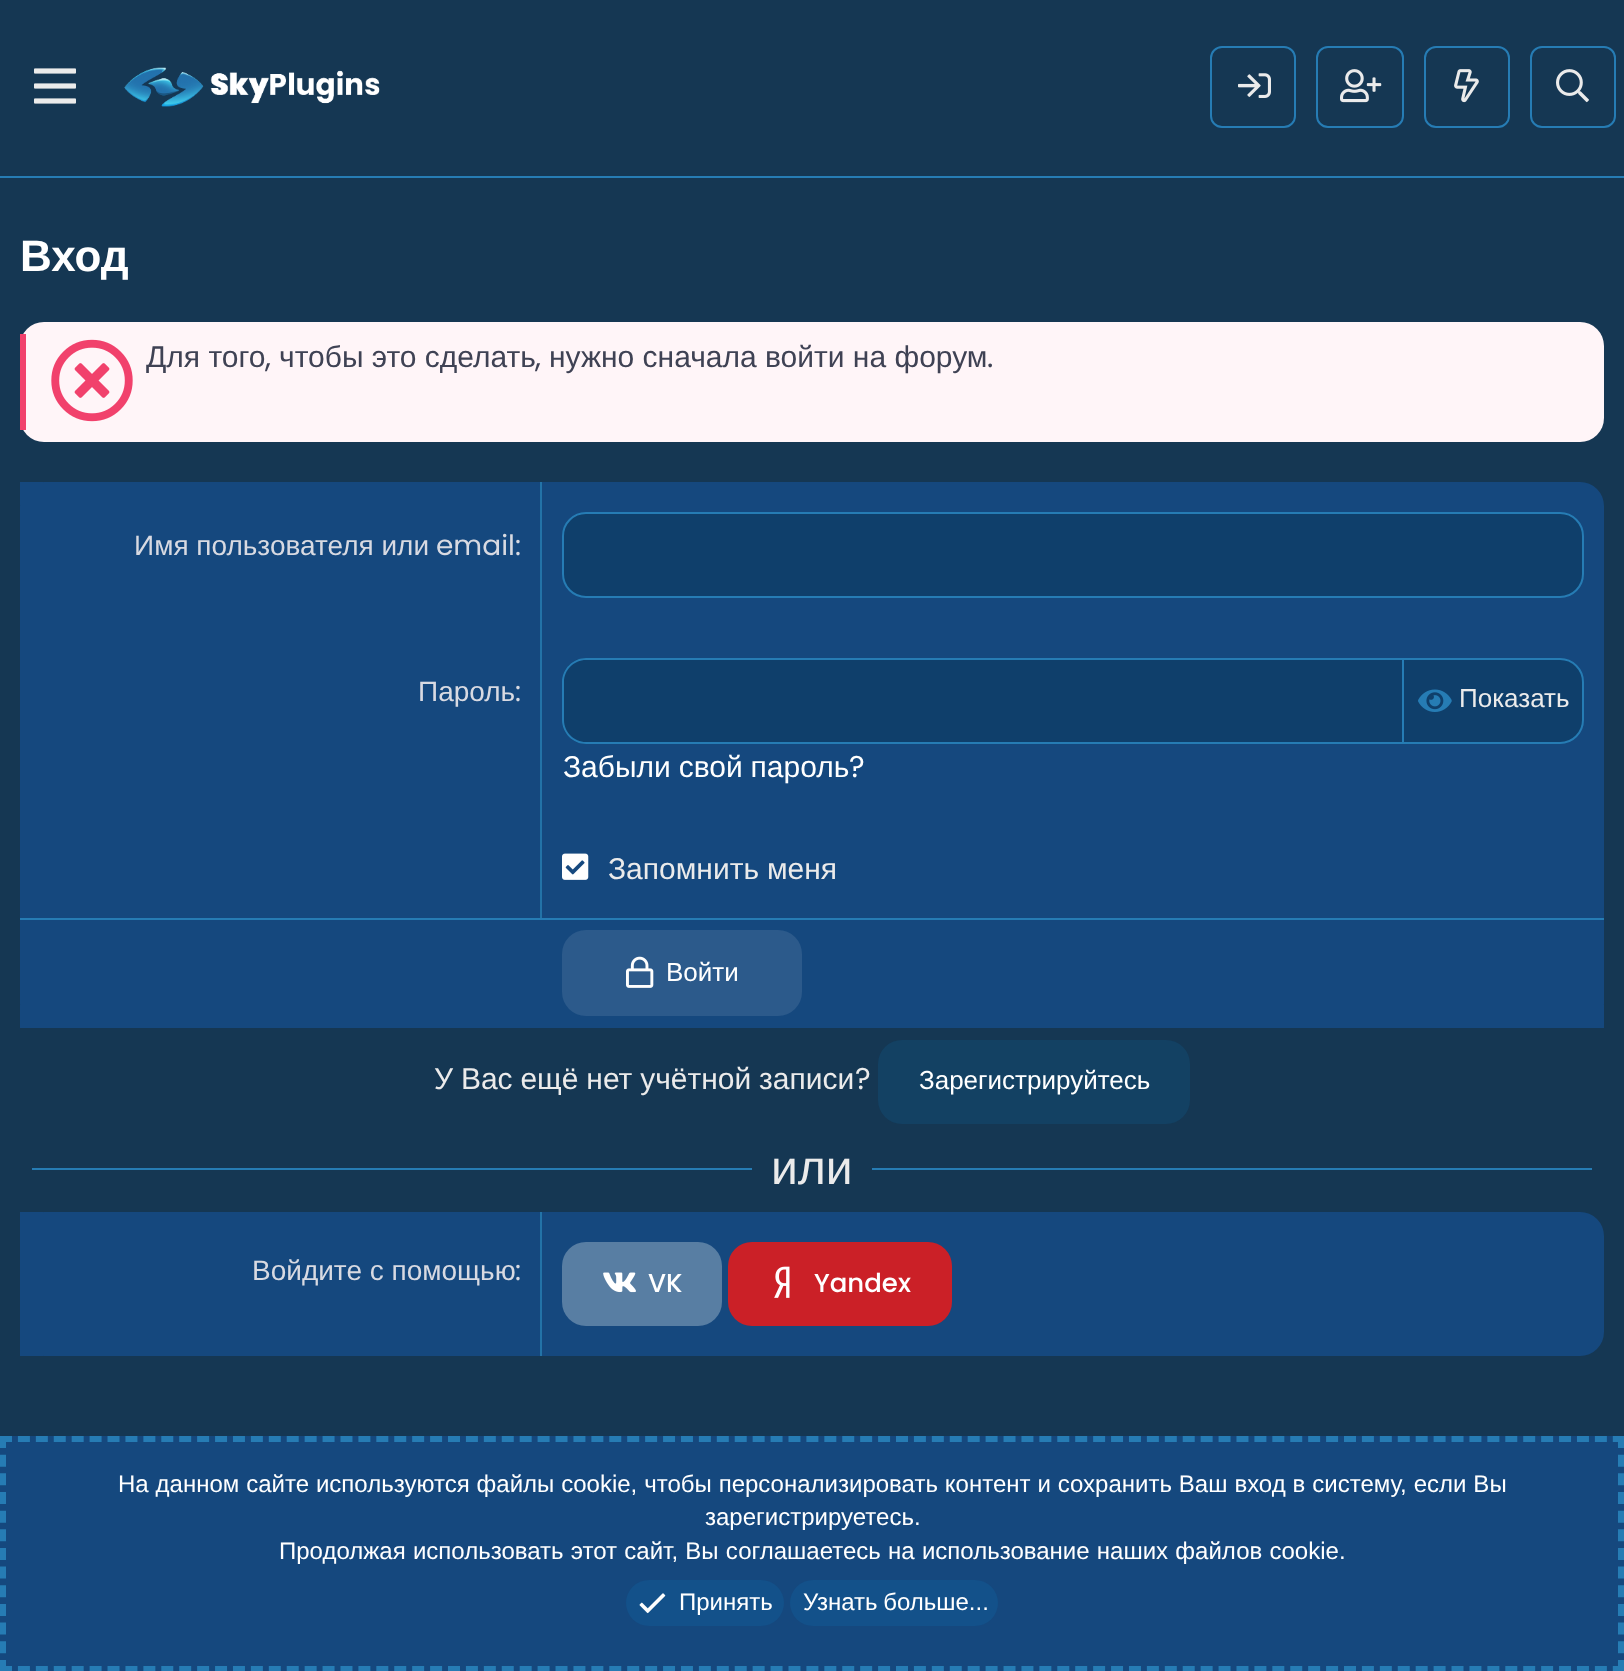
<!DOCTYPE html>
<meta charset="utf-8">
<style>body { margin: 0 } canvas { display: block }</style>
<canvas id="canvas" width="1624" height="1671"></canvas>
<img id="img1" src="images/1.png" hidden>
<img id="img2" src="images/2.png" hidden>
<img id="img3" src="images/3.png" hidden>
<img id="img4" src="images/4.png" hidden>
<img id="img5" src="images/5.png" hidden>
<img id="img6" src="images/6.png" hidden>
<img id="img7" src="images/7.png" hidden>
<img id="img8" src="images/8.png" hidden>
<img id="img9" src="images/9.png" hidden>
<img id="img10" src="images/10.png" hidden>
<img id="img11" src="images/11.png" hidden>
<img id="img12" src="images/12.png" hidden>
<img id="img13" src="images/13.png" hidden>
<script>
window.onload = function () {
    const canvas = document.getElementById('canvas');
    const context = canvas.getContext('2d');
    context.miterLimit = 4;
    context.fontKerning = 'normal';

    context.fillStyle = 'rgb(21, 55, 83)';
    context.fillRect(0, 0, 1624, 1671);
    context.fillStyle = 'rgb(38, 124, 180)';
    context.fillRect(0, 176, 1624, 2);
    context.drawImage(document.getElementById('img1'), 34, 68, 42, 36);
    context.drawImage(document.getElementById('img2'), 124, 67, 256, 40);
    context.beginPath();
    context.roundRect(1211, 47, 84, 80, 11);
    context.strokeStyle = 'rgb(38, 124, 180)';
    context.lineWidth = 2;
    context.stroke();
    context.drawImage(document.getElementById('img3'), 1238, 73, 33, 25);
    context.beginPath();
    context.roundRect(1317, 47, 86, 80, 11);
    context.stroke();
    context.drawImage(document.getElementById('img4'), 1340, 69, 42, 34);
    context.beginPath();
    context.roundRect(1425, 47, 84, 80, 11);
    context.stroke();
    context.drawImage(document.getElementById('img5'), 1454, 69, 25, 34);
    context.beginPath();
    context.roundRect(1531, 47, 84, 80, 11);
    context.stroke();
    context.drawImage(document.getElementById('img6'), 1556, 69, 33, 34);
    context.fillStyle = 'rgb(255, 245, 248)';
    context.beginPath();
    context.roundRect(20, 322, 1584, 120, 24);
    context.fill();
    context.fillStyle = 'rgb(241, 65, 108)';
    context.fillRect(20, 334, 6, 96);
    context.drawImage(document.getElementById('img7'), 51, 339, 82, 83);
    context.fillStyle = 'rgb(21, 72, 126)';
    context.beginPath();
    context.roundRect(20, 482, 1584, 546, 24);
    context.fill();
    context.fillRect(20, 482, 23, 23);
    context.fillStyle = 'rgb(35, 115, 167)';
    context.fillRect(540, 482, 2, 436);
    context.fillStyle = 'rgb(15, 63, 107)';
    context.beginPath();
    context.roundRect(563, 513, 1020, 84, 23);
    context.fill();
    context.stroke();
    context.beginPath();
    context.roundRect(562, 658, 840, 86, [24, 0, 0, 24]);
    context.fill();
    context.fillStyle = 'rgb(38, 124, 180)';
    context.beginPath();
    context.moveTo(586, 658);
    context.lineTo(1402, 658);
    context.lineTo(1402, 744);
    context.lineTo(586, 744);
    context.bezierCurveTo(573, 744, 562, 733, 562, 720);
    context.lineTo(562, 682);
    context.bezierCurveTo(562, 669, 573, 658, 586, 658);
    context.closePath();
    context.moveTo(586, 660);
    context.lineTo(1402, 660);
    context.lineTo(1402, 742);
    context.lineTo(586, 742);
    context.bezierCurveTo(574, 742, 564, 732, 564, 720);
    context.lineTo(564, 682);
    context.bezierCurveTo(564, 670, 574, 660, 586, 660);
    context.closePath();
    context.fill('evenodd');
    context.fillStyle = 'rgb(15, 63, 107)';
    context.beginPath();
    context.roundRect(1403, 659, 180, 84, [0, 23, 23, 0]);
    context.fill();
    context.stroke();
    context.drawImage(document.getElementById('img8'), 1418, 689, 34, 23);
    context.drawImage(document.getElementById('img9'), 562, 853, 27, 27);
    context.fillStyle = 'rgb(21, 72, 126)';
    context.fillRect(20, 1005, 1584, 23);
    context.fillStyle = 'rgb(38, 124, 180)';
    context.fillRect(20, 918, 1584, 2);
    context.fillStyle = 'rgb(44, 90, 139)';
    context.beginPath();
    context.roundRect(562, 930, 240, 86, 24);
    context.fill();
    context.drawImage(document.getElementById('img10'), 626, 956, 28, 32);
    context.fillStyle = 'rgb(19, 65, 99)';
    context.beginPath();
    context.roundRect(878, 1040, 312, 84, 24);
    context.fill();
    context.fillStyle = 'rgb(38, 124, 180)';
    context.fillRect(32, 1168, 720, 2);
    context.fillRect(872, 1168, 720, 2);
    context.fillStyle = 'rgb(21, 72, 126)';
    context.beginPath();
    context.roundRect(20, 1212, 1584, 144, 24);
    context.fill();
    context.fillRect(20, 1212, 23, 144);
    context.fillStyle = 'rgb(35, 115, 167)';
    context.fillRect(540, 1212, 2, 144);
    context.fillStyle = 'rgb(88, 126, 163)';
    context.beginPath();
    context.roundRect(562, 1242, 160, 84, 24);
    context.fill();
    context.drawImage(document.getElementById('img11'), 603, 1272, 33, 21);
    context.fillStyle = 'rgb(203, 32, 39)';
    context.beginPath();
    context.roundRect(728, 1242, 224, 84, 24);
    context.fill();
    context.drawImage(document.getElementById('img12'), 774, 1266, 16, 32);
    context.fillStyle = 'rgb(21, 72, 126)';
    context.fillRect(0, 1436, 1624, 235);
    context.beginPath();
    context.moveTo(0, 1439);
    context.lineTo(1624, 1439);
    context.lineWidth = 6;
    context.setLineDash([12, 5.92]);
    context.stroke();
    context.beginPath();
    context.moveTo(1621, 1436);
    context.lineTo(1621, 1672);
    context.setLineDash([12, 6.66]);
    context.stroke();
    context.beginPath();
    context.moveTo(0, 1669);
    context.lineTo(1624, 1669);
    context.setLineDash([12, 5.92]);
    context.stroke();
    context.beginPath();
    context.moveTo(3, 1436);
    context.lineTo(3, 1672);
    context.setLineDash([12, 6.66]);
    context.stroke();
    context.fillStyle = 'rgb(19, 81, 138)';
    context.beginPath();
    context.roundRect(626, 1580, 158, 46, 23);
    context.fill();
    context.drawImage(document.getElementById('img13'), 639, 1593, 27, 21);
    context.beginPath();
    context.roundRect(790, 1580, 208, 46, 23);
    context.fill();
    context.font = 'bold 44px Liberation Sans';
    context.fillStyle = 'rgb(255, 255, 255)';
    context.fillText('Вход', 20, 271);
    context.font = '30px Liberation Sans';
    context.fillStyle = 'rgb(63, 66, 84)';
    context.fillText('Для того', 146, 367);
    context.font = '30px Poppins';
    context.fillText(',', 265, 367);
    context.font = '30px Liberation Sans';
    context.fillText('чтобы это сделать', 279, 367);
    context.font = '30px Poppins';
    context.fillText(',', 535, 367);
    context.font = '30px Liberation Sans';
    context.fillText('нужно сначала войти на форум', 549, 367);
    context.font = '30px Poppins';
    context.fillText('.', 987, 367);
    context.font = '28px Liberation Sans';
    context.fillStyle = 'rgb(216, 218, 226)';
    context.fillText('Имя пользователя или', 134, 555);
    context.font = '28px Poppins';
    context.fillText('email', 436, 555);
    context.fillText(':', 515, 555);
    context.font = '28px Liberation Sans';
    context.fillText('Пароль', 418, 701);
    context.font = '28px Poppins';
    context.fillText(':', 515, 701);
    context.font = '26px Liberation Sans';
    context.fillStyle = 'rgb(235, 235, 235)';
    context.fillText('Показать', 1459, 707);
    context.wordSpacing = '-0.5px';
    context.font = '30px Liberation Sans';
    context.fillStyle = 'rgb(255, 255, 255)';
    context.fillText('Забыли свой пароль', 563, 777);
    context.wordSpacing = '0px';
    context.font = '30px Poppins';
    context.fillText('?', 849, 777);
    context.wordSpacing = '-0.5px';
    context.font = '30px Liberation Sans';
    context.fillStyle = 'rgb(235, 235, 235)';
    context.fillText('Запомнить меня', 608, 879);
    context.wordSpacing = '0px';
    context.font = '26px Liberation Sans';
    context.fillStyle = 'rgb(255, 255, 255)';
    context.fillText('Войти', 666, 981);
    context.wordSpacing = '-0.5px';
    context.font = '30px Liberation Sans';
    context.fillStyle = 'rgb(235, 235, 235)';
    context.fillText('У Вас ещё нет учётной записи', 434, 1089);
    context.wordSpacing = '0px';
    context.font = '30px Poppins';
    context.fillText('?', 855, 1089);
    context.font = '26px Liberation Sans';
    context.fillStyle = 'rgb(255, 255, 255)';
    context.fillText('Зарегистрируйтесь', 919, 1089);
    context.font = '48px Liberation Sans';
    context.fillStyle = 'rgb(235, 235, 235)';
    context.fillText('или', 771, 1184);
    context.font = '28px Liberation Sans';
    context.fillStyle = 'rgb(216, 218, 226)';
    context.fillText('Войдите с помощью', 252, 1280);
    context.font = '28px Poppins';
    context.fillText(':', 515, 1280);
    context.font = '500 26px Poppins';
    context.fillStyle = 'rgb(255, 255, 255)';
    context.fillText('VK', 648, 1292);
    context.fillText('Yandex', 814, 1292);
    context.wordSpacing = '0.25px';
    context.font = '24px Liberation Sans';
    context.fillText('На данном сайте используются файлы cookie, чтобы персонализировать контент и сохранить Ваш вход в систему, если Вы', 118, 1492);
    context.wordSpacing = '0px';
    context.fillText('зарегистрируетесь.', 705, 1525);
    context.wordSpacing = '0.6px';
    context.fillText('Продолжая использовать этот сайт, Вы соглашаетесь на использование наших файлов cookie.', 279, 1559);
    context.wordSpacing = '0px';
    context.fillText('Принять', 679, 1610);
    context.wordSpacing = '-1px';
    context.fillText('Узнать больше...', 803, 1610);
};
</script>
